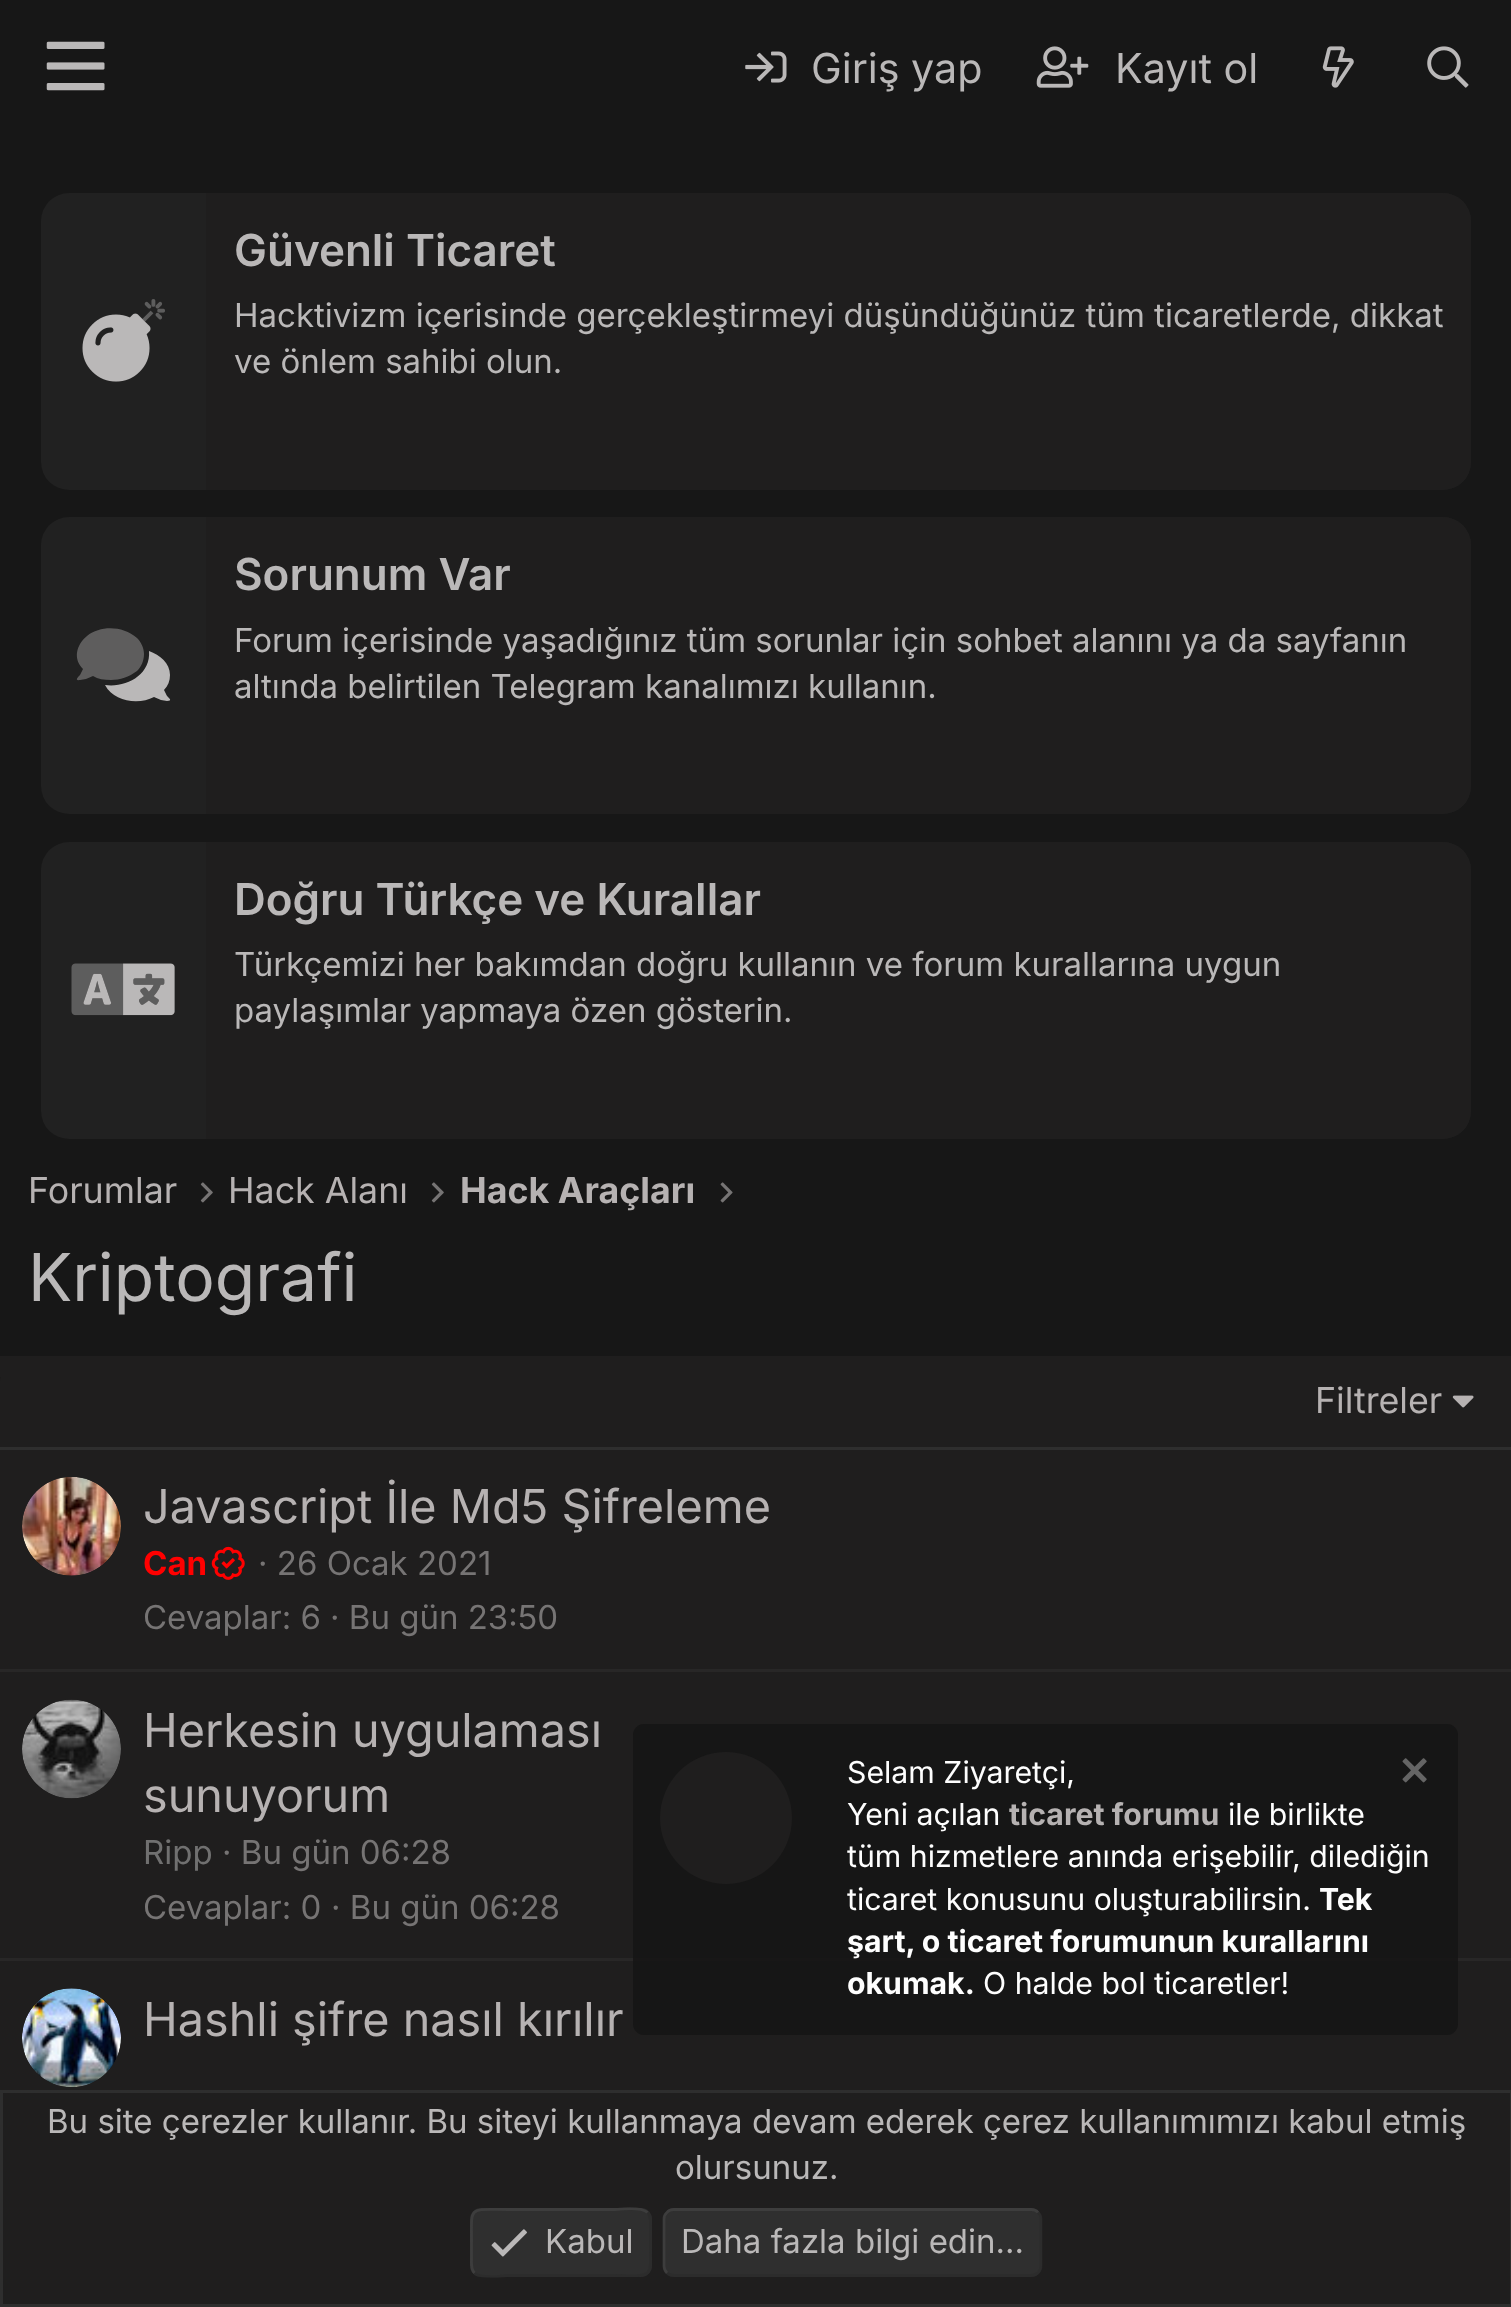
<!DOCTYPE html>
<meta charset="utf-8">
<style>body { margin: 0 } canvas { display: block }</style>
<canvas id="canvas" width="1511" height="2307"></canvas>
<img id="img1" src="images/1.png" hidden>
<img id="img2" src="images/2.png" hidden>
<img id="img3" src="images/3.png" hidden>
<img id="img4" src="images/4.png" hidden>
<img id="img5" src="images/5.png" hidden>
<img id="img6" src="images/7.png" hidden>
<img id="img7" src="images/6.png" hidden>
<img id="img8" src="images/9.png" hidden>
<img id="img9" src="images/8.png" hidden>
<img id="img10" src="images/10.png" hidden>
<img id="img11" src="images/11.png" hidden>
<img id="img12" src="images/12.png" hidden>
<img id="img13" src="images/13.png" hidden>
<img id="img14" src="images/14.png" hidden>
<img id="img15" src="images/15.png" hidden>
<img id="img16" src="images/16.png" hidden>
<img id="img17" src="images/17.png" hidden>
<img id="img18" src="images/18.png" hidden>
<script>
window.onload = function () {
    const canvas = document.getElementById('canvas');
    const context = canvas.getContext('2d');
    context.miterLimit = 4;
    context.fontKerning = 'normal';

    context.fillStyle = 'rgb(23, 23, 23)';
    context.fillRect(0, 0, 1511, 2307);
    context.drawImage(document.getElementById('img1'), 46, 41, 59, 50);
    context.drawImage(document.getElementById('img2'), 745, 51, 42, 32);
    context.drawImage(document.getElementById('img3'), 1036, 46, 53, 42);
    context.drawImage(document.getElementById('img4'), 1322, 46, 32, 42);
    context.drawImage(document.getElementById('img5'), 1427, 46, 42, 42);
    context.fillStyle = 'rgb(33, 33, 33)';
    context.beginPath();
    context.roundRect(41, 193, 1430, 297, 28);
    context.fill();
    context.drawImage(document.getElementById('img6'), 82, 313, 69, 69);
    context.drawImage(document.getElementById('img7'), 142, 299, 23, 23);
    context.fillStyle = 'rgb(31, 30, 30)';
    context.beginPath();
    context.roundRect(206, 193, 1265, 297, [0, 28, 28, 0]);
    context.fill();
    context.fillStyle = 'rgb(33, 33, 33)';
    context.beginPath();
    context.roundRect(41, 517, 1430, 297, 28);
    context.fill();
    context.fillStyle = 'rgb(186, 184, 184)';
    context.beginPath();
    context.moveTo(170, 675);
    context.bezierCurveTo(170, 681, 168, 686, 164, 690);
    context.lineTo(167, 696);
    context.bezierCurveTo(169, 698, 173, 701, 167, 701);
    context.lineTo(161, 700);
    context.lineTo(154, 697);
    context.bezierCurveTo(139, 705, 114, 702, 105, 685);
    context.bezierCurveTo(126, 688, 151, 675, 149, 651);
    context.bezierCurveTo(160, 655, 170, 663, 170, 675);
    context.closePath();
    context.fill();
    context.fillStyle = 'rgb(94, 93, 93)';
    context.beginPath();
    context.moveTo(111, 680);
    context.bezierCurveTo(104, 680, 98, 679, 93, 676);
    context.lineTo(86, 679);
    context.lineTo(80, 680);
    context.bezierCurveTo(74, 681, 78, 677, 80, 675);
    context.lineTo(83, 669);
    context.bezierCurveTo(73, 659, 76, 645, 87, 636);
    context.bezierCurveTo(101, 625, 123, 626, 137, 638);
    context.bezierCurveTo(141, 642, 144, 648, 144, 654);
    context.bezierCurveTo(144, 661, 141, 667, 137, 671);
    context.bezierCurveTo(129, 677, 120, 680, 111, 680);
    context.closePath();
    context.fill();
    context.fillStyle = 'rgb(31, 30, 30)';
    context.beginPath();
    context.roundRect(206, 517, 1265, 297, [0, 28, 28, 0]);
    context.fill();
    context.fillStyle = 'rgb(33, 33, 33)';
    context.beginPath();
    context.roundRect(41, 842, 1430, 297, 28);
    context.fill();
    context.drawImage(document.getElementById('img8'), 83, 963, 92, 53);
    context.drawImage(document.getElementById('img9'), 71, 963, 94, 53);
    context.fillStyle = 'rgb(31, 30, 30)';
    context.beginPath();
    context.roundRect(206, 842, 1265, 297, [0, 28, 28, 0]);
    context.fill();
    context.drawImage(document.getElementById('img10'), 200, 1182, 13, 21);
    context.drawImage(document.getElementById('img10'), 431, 1182, 13, 21);
    context.drawImage(document.getElementById('img11'), 720, 1182, 13, 21);
    context.beginPath();
    context.roundRect(0, 1353, 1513, 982, 28);
    context.fill();
    context.fillStyle = 'rgb(23, 23, 23)';
    context.fillRect(14, 1353, 1485, 3);
    context.fillStyle = 'rgb(31, 30, 30)';
    context.fillRect(0, 1356, 1511, 21);
    context.fillStyle = 'rgb(46, 46, 46)';
    context.fillRect(0, 1447, 1511, 3);
    context.drawImage(document.getElementById('img12'), 1452, 1395, 22, 13);
    context.drawImage(document.getElementById('img13'), 22, 1477, 99, 99);
    context.drawImage(document.getElementById('img14'), 211, 1546, 34, 34);
    context.fillStyle = 'rgb(40, 39, 39)';
    context.fillRect(0, 1669, 1511, 3);
    context.drawImage(document.getElementById('img15'), 22, 1699, 99, 100);
    context.fillRect(0, 1958, 1511, 3);
    context.drawImage(document.getElementById('img16'), 22, 1988, 99, 99);
    context.fillStyle = 'rgba(20, 20, 20, 0.8)';
    context.beginPath();
    context.roundRect(633, 1724, 825, 311, 11);
    context.fill();
    context.fillStyle = 'rgb(31, 30, 30)';
    context.beginPath();
    context.arc(726, 1818, 66, 0, 2 * Math.PI);
    context.fill();
    context.drawImage(document.getElementById('img17'), 1402, 1758, 25, 25);
    context.strokeStyle = 'rgb(46, 46, 46)';
    context.lineWidth = 3;
    context.strokeRect(1.5, 2091.5, 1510, 214);
    context.fillStyle = 'rgb(47, 47, 47)';
    context.beginPath();
    context.roundRect(470, 2208, 182, 69, 11);
    context.fill();
    context.beginPath();
    context.moveTo(647.5, 2212.5);
    context.bezierCurveTo(651.5, 2216.5, 650.5, 2222, 650.5, 2227);
    context.lineTo(650.5, 2242.5);
    context.bezierCurveTo(650.5, 2280.5, 654, 2275.5, 614, 2275.5);
    context.lineTo(508, 2275.5);
    context.bezierCurveTo(505, 2275.5, 481, 2279.5, 474.5, 2273);
    context.strokeStyle = 'rgba(43, 43, 43, 0.65)';
    context.lineWidth = 2.8;
    context.stroke();
    context.beginPath();
    context.moveTo(474.5, 2273);
    context.bezierCurveTo(470.5, 2269, 471.5, 2263, 471.5, 2258);
    context.lineTo(471.5, 2242.5);
    context.bezierCurveTo(471.5, 2205, 468, 2209.5, 508, 2209.5);
    context.lineTo(614, 2209.5);
    context.bezierCurveTo(617, 2209.5, 641, 2206, 647.5, 2212.5);
    context.strokeStyle = 'rgba(69, 69, 69, 0.65)';
    context.stroke();
    context.drawImage(document.getElementById('img18'), 491, 2229, 36, 28);
    context.beginPath();
    context.roundRect(663, 2208, 379, 69, 11);
    context.fill();
    context.beginPath();
    context.moveTo(1038, 2212.5);
    context.bezierCurveTo(1040, 2214, 1041, 2216.5, 1041, 2219);
    context.lineTo(1041, 2266);
    context.bezierCurveTo(1041, 2268.5, 1040, 2271, 1038, 2273);
    context.bezierCurveTo(1036.5, 2274.5, 1034, 2275.5, 1031, 2275.5);
    context.lineTo(674, 2275.5);
    context.bezierCurveTo(671, 2275.5, 668.5, 2274.5, 667, 2273);
    context.strokeStyle = 'rgba(43, 43, 43, 0.65)';
    context.stroke();
    context.beginPath();
    context.moveTo(667, 2273);
    context.bezierCurveTo(665, 2271, 664, 2268.5, 664, 2266);
    context.lineTo(664, 2219);
    context.bezierCurveTo(664, 2216.5, 665, 2214, 667, 2212.5);
    context.bezierCurveTo(668.5, 2210.5, 671, 2209.5, 674, 2209.5);
    context.lineTo(1031, 2209.5);
    context.bezierCurveTo(1034, 2209.5, 1036.5, 2210.5, 1038, 2212.5);
    context.strokeStyle = 'rgba(69, 69, 69, 0.65)';
    context.stroke();
    context.font = '41.25px Inter';
    context.fillStyle = 'rgb(186, 184, 184)';
    context.fillText('Giriş yap', 811, 83);
    context.fillText('Kayıt ol', 1115, 83);
    context.font = '600 44px Inter';
    context.fillText('Güvenli Ticaret', 234, 266);
    context.font = '33px Inter';
    context.fillText('Hacktivizm içerisinde gerçekleştirmeyi düşündüğünüz tüm ticaretlerde, dikkat', 234, 327);
    context.fillText('ve önlem sahibi olun.', 234, 373);
    context.font = '600 44px Inter';
    context.fillText('Sorunum Var', 234, 590);
    context.font = '33px Inter';
    context.fillText('Forum içerisinde yaşadığınız tüm sorunlar için sohbet alanını ya da sayfanın', 234, 652);
    context.fillText('altında belirtilen Telegram kanalımızı kullanın.', 234, 698);
    context.font = '600 44px Inter';
    context.fillText('Doğru Türkçe ve Kurallar', 234, 915);
    context.font = '33px Inter';
    context.fillText('Türkçemizi her bakımdan doğru kullanın ve forum kurallarına uygun', 234, 976);
    context.fillText('paylaşımlar yapmaya özen gösterin.', 234, 1022);
    context.font = '35.75px Inter';
    context.fillStyle = 'rgb(182, 178, 178)';
    context.fillText('Forumlar', 28, 1203);
    context.fillText('Hack Alanı', 228, 1203);
    context.font = 'bold 35.75px Inter';
    context.fillText('Hack Araçları', 460, 1203);
    context.font = '66px Inter';
    context.fillStyle = 'rgb(186, 184, 184)';
    context.fillText('Kriptografi', 28, 1301);
    context.font = '35.75px Inter';
    context.fillStyle = 'rgb(182, 178, 178)';
    context.fillText('Filtreler', 1315, 1413);
    context.font = '46.75px Inter';
    context.fillText('Javascript İle Md5 Şifreleme', 143, 1523);
    context.font = 'bold 33px Inter';
    context.fillStyle = 'rgb(255, 0, 0)';
    context.fillText('Can', 143, 1575);
    context.font = '33px Inter';
    context.fillStyle = 'rgb(118, 116, 116)';
    context.fillText('· 26 Ocak 2021', 258, 1575);
    context.fillText('Cevaplar: 6', 143, 1629);
    context.fillText('· Bu gün 23:50', 330, 1629);
    context.font = '46.75px Inter';
    context.fillStyle = 'rgb(182, 178, 178)';
    context.fillText('Herkesin uygulaması', 143, 1747);
    context.fillText('sunuyorum', 143, 1812);
    context.font = '33px Inter';
    context.fillStyle = 'rgb(112, 112, 112)';
    context.fillText('Ripp', 143, 1864);
    context.fillStyle = 'rgb(118, 116, 116)';
    context.fillText('· Bu gün 06:28', 222, 1864);
    context.fillText('Cevaplar: 0', 143, 1919);
    context.fillText('· Bu gün 06:28', 331, 1919);
    context.font = '46.75px Inter';
    context.fillStyle = 'rgb(182, 178, 178)';
    context.fillText('Hashli şifre nasıl kırılır', 143, 2036);
    context.font = '30.25px Inter';
    context.fillStyle = 'rgb(254, 254, 254)';
    context.fillText('Selam Ziyaretçi,', 847, 1783);
    context.fillText('Yeni açılan', 847, 1825);
    context.font = 'bold 30.25px Inter';
    context.fillStyle = 'rgb(182, 178, 178)';
    context.fillText('ticaret forumu', 1009, 1825);
    context.font = '30.25px Inter';
    context.fillStyle = 'rgb(254, 254, 254)';
    context.fillText('ile birlikte', 1228, 1825);
    context.fillText('tüm hizmetlere anında erişebilir, dilediğin', 847, 1867);
    context.fillText('ticaret konusunu oluşturabilirsin.', 847, 1910);
    context.font = 'bold 30.25px Inter';
    context.fillText('Tek', 1319, 1910);
    context.fillText('şart, o ticaret forumunun kurallarını', 847, 1952);
    context.fillText('okumak.', 847, 1994);
    context.font = '30.25px Inter';
    context.fillText('O halde bol ticaretler!', 983, 1994);
    context.font = '33px Inter';
    context.fillStyle = 'rgb(186, 184, 184)';
    context.fillText('Bu site çerezler kullanır. Bu siteyi kullanmaya devam ederek çerez kullanımımızı kabul etmiş', 47, 2133);
    context.fillText('olursunuz.', 675, 2179);
    context.fillText('Kabul', 545, 2253);
    context.fillText('Daha fazla bilgi edin...', 681, 2253);
};
</script>
